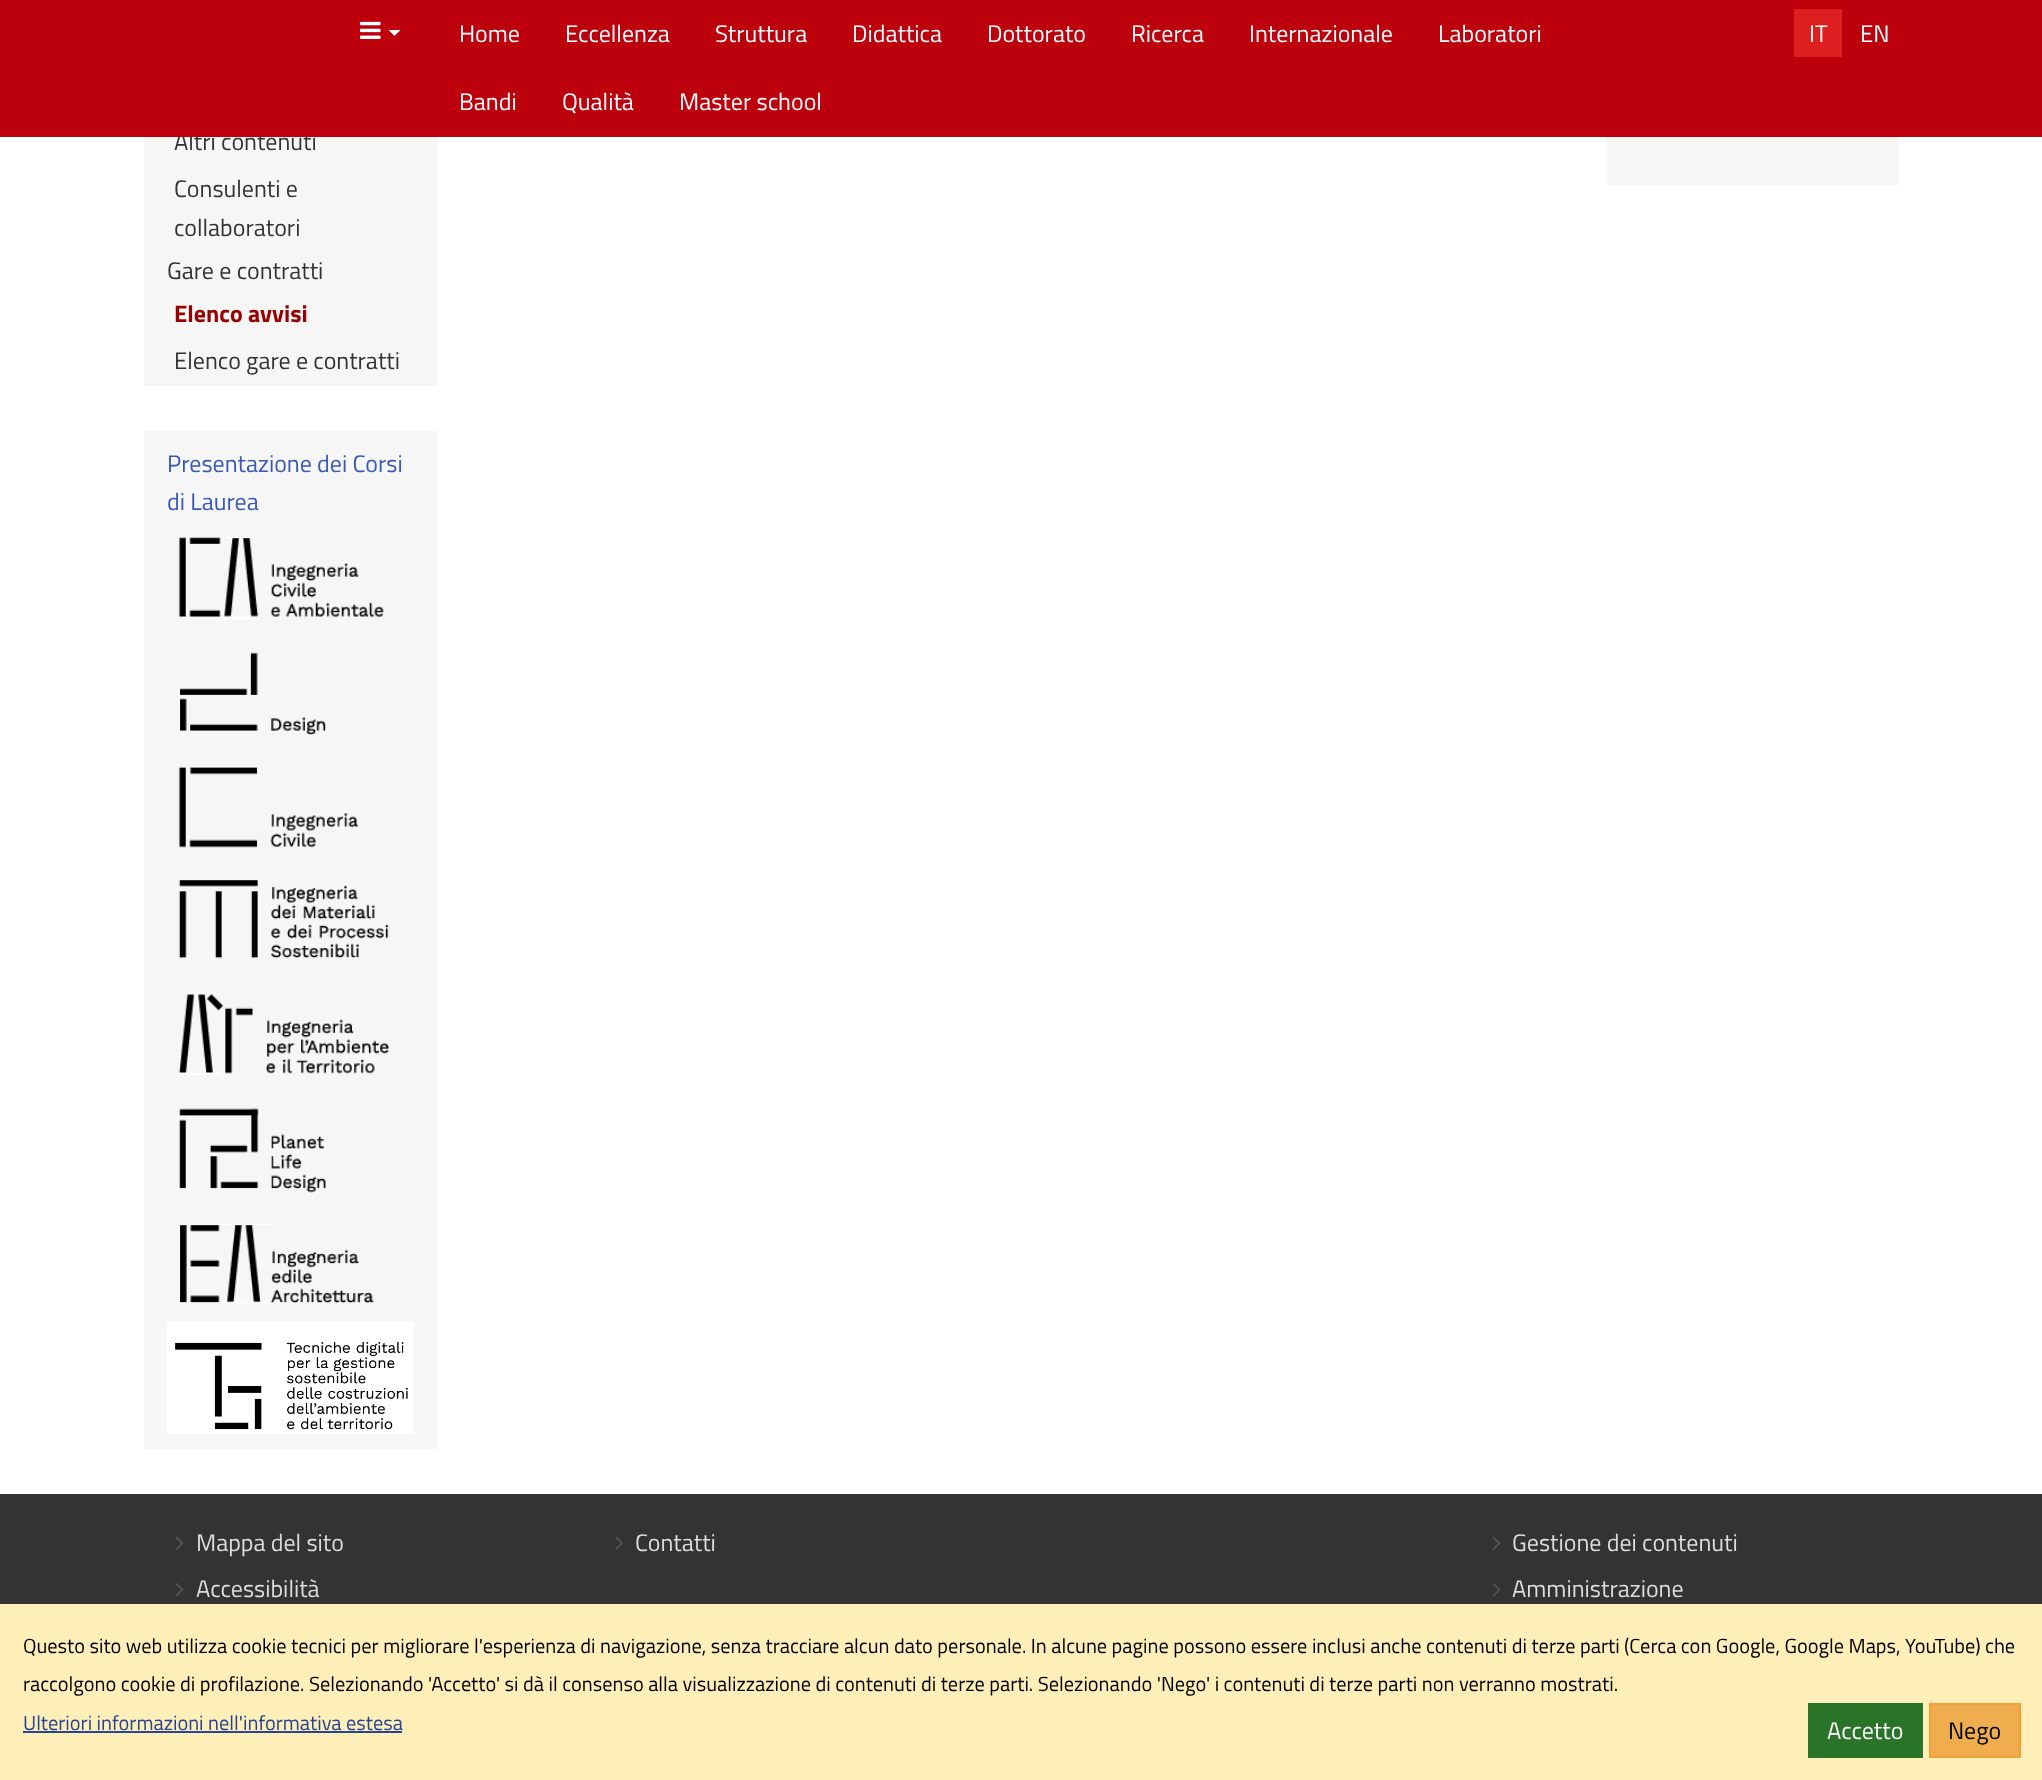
<!DOCTYPE html>
<meta charset="utf-8">
<style>body { margin: 0 } canvas { display: block }</style>
<canvas id="canvas" width="2042" height="1780"></canvas>
<img id="img1" src="images/2.png" hidden>
<img id="img2" src="images/3.png" hidden>
<img id="img3" src="images/4.png" hidden>
<img id="img4" src="images/5.png" hidden>
<img id="img5" src="images/6.png" hidden>
<img id="img6" src="images/7.png" hidden>
<img id="img7" src="images/8.png" hidden>
<img id="img8" src="images/9.png" hidden>
<img id="img9" src="images/10.png" hidden>
<img id="img10" src="images/11.png" hidden>
<img id="img11" src="images/12.png" hidden>
<img id="img12" src="images/1.png" hidden>
<script>
window.onload = function () {
    const canvas = document.getElementById('canvas');
    const context = canvas.getContext('2d');
    context.miterLimit = 4;
    context.fontKerning = 'normal';

    context.fillStyle = 'rgb(255, 255, 255)';
    context.fillRect(0, 0, 2042, 1780);
    context.fillStyle = 'rgb(246, 246, 246)';
    context.fillRect(144, 137, 293, 249);
    context.fillRect(144, 431, 293, 1018);
    context.drawImage(document.getElementById('img1'), 178, 537, 206, 83);
    context.drawImage(document.getElementById('img2'), 180, 652, 146, 83);
    context.drawImage(document.getElementById('img3'), 178, 767, 180, 81);
    context.drawImage(document.getElementById('img4'), 178, 880, 211, 79);
    context.drawImage(document.getElementById('img5'), 175, 993, 215, 82);
    context.drawImage(document.getElementById('img6'), 179, 1108, 147, 85);
    context.drawImage(document.getElementById('img7'), 180, 1224, 194, 80);
    context.drawImage(document.getElementById('img8'), 166, 1321, 248, 113);
    context.fillRect(1607, 137, 292, 48);
    context.fillStyle = 'rgb(51, 51, 51)';
    context.fillRect(0, 1494, 2042, 110);
    context.drawImage(document.getElementById('img9'), 175, 1536, 9, 14);
    context.drawImage(document.getElementById('img10'), 175, 1583, 9, 14);
    context.drawImage(document.getElementById('img11'), 615, 1536, 8, 14);
    context.drawImage(document.getElementById('img9'), 1492, 1536, 9, 14);
    context.drawImage(document.getElementById('img10'), 1492, 1583, 9, 14);
    context.fillStyle = 'rgb(253, 239, 183)';
    context.fillRect(0, 1604, 2042, 176);
    context.fillStyle = 'rgb(41, 67, 148)';
    context.fillRect(23, 1731, 379, 2);
    context.fillStyle = 'rgb(42, 116, 42)';
    context.fillRect(1808, 1703, 115, 55);
    context.fillStyle = 'rgb(240, 173, 78)';
    context.beginPath();
    context.rect(1930, 1704, 90, 53);
    context.fill();
    context.strokeStyle = 'rgb(238, 162, 54)';
    context.lineWidth = 2;
    context.stroke();
    context.font = '24px Titillium Web';
    context.fillStyle = 'rgb(51, 51, 51)';
    context.fillText('Altri contenuti', 174, 150);
    context.fillStyle = 'rgb(188, 0, 12)';
    context.fillRect(0, 0, 2042, 137);
    context.fillStyle = 'rgb(255, 255, 255)';
    context.fillText('EN', 1860, 42);
    context.fillStyle = 'rgb(222, 31, 31)';
    context.fillRect(1794, 9, 48, 48);
    context.fillStyle = 'rgb(255, 255, 255)';
    context.fillText('IT', 1809, 42);
    context.fillText('Master school', 679, 110);
    context.fillText('Qualità', 562, 110);
    context.fillText('Bandi', 459, 110);
    context.fillText('Laboratori', 1438, 42);
    context.fillText('Internazionale', 1249, 42);
    context.fillText('Ricerca', 1131, 42);
    context.fillText('Dottorato', 987, 42);
    context.fillText('Didattica', 852, 42);
    context.fillText('Struttura', 715, 42);
    context.fillText('Eccellenza', 565, 42);
    context.fillText('Home', 459, 42);
    context.beginPath();
    context.moveTo(388.5, 30);
    context.lineTo(400.5, 30);
    context.lineTo(394.5, 36);
    context.closePath();
    context.fill();
    context.drawImage(document.getElementById('img12'), 360, 21, 21, 18);
    context.fillStyle = 'rgb(51, 51, 51)';
    context.fillText('Consulenti e', 174, 197);
    context.fillText('collaboratori', 174, 236);
    context.fillText('Gare e contratti', 167, 279);
    context.font = 'bold 24px Titillium Web';
    context.fillStyle = 'rgb(153, 0, 0)';
    context.fillText('Elenco avvisi', 174, 322);
    context.font = '24px Titillium Web';
    context.fillStyle = 'rgb(51, 51, 51)';
    context.fillText('Elenco gare e contratti', 174, 369);
    context.fillStyle = 'rgb(56, 87, 182)';
    context.fillText('Presentazione dei Corsi', 167, 472);
    context.fillText('di Laurea', 167, 510);
    context.fillStyle = 'rgb(221, 221, 221)';
    context.fillText('Mappa del sito', 196, 1551);
    context.fillText('Accessibilità', 196, 1597);
    context.fillText('Contatti', 635, 1551);
    context.fillText('Gestione dei contenuti', 1512, 1551);
    context.fillText('Amministrazione', 1512, 1597);
    context.font = '20.4px Titillium Web';
    context.fillStyle = 'rgb(0, 0, 0)';
    context.fillText('Questo sito web utilizza cookie tecnici per migliorare l\'esperienza di navigazione, senza tracciare alcun dato personale. In alcune pagine possono essere inclusi anche contenuti di terze parti (Cerca con Google, Google Maps, YouTube) che', 23, 1653);
    context.fillText('raccolgono cookie di profilazione. Selezionando \'Accetto\' si dà il consenso alla visualizzazione di contenuti di terze parti. Selezionando \'Nego\' i contenuti di terze parti non verranno mostrati.', 23, 1691);
    context.fillStyle = 'rgb(41, 67, 148)';
    context.fillText('Ulteriori informazioni nell\'informativa estesa', 23, 1730);
    context.font = '24px Titillium Web';
    context.fillStyle = 'rgb(255, 255, 255)';
    context.fillText('Accetto', 1827, 1739);
    context.fillStyle = 'rgb(0, 0, 0)';
    context.fillText('Nego', 1948, 1739);
};
</script>
